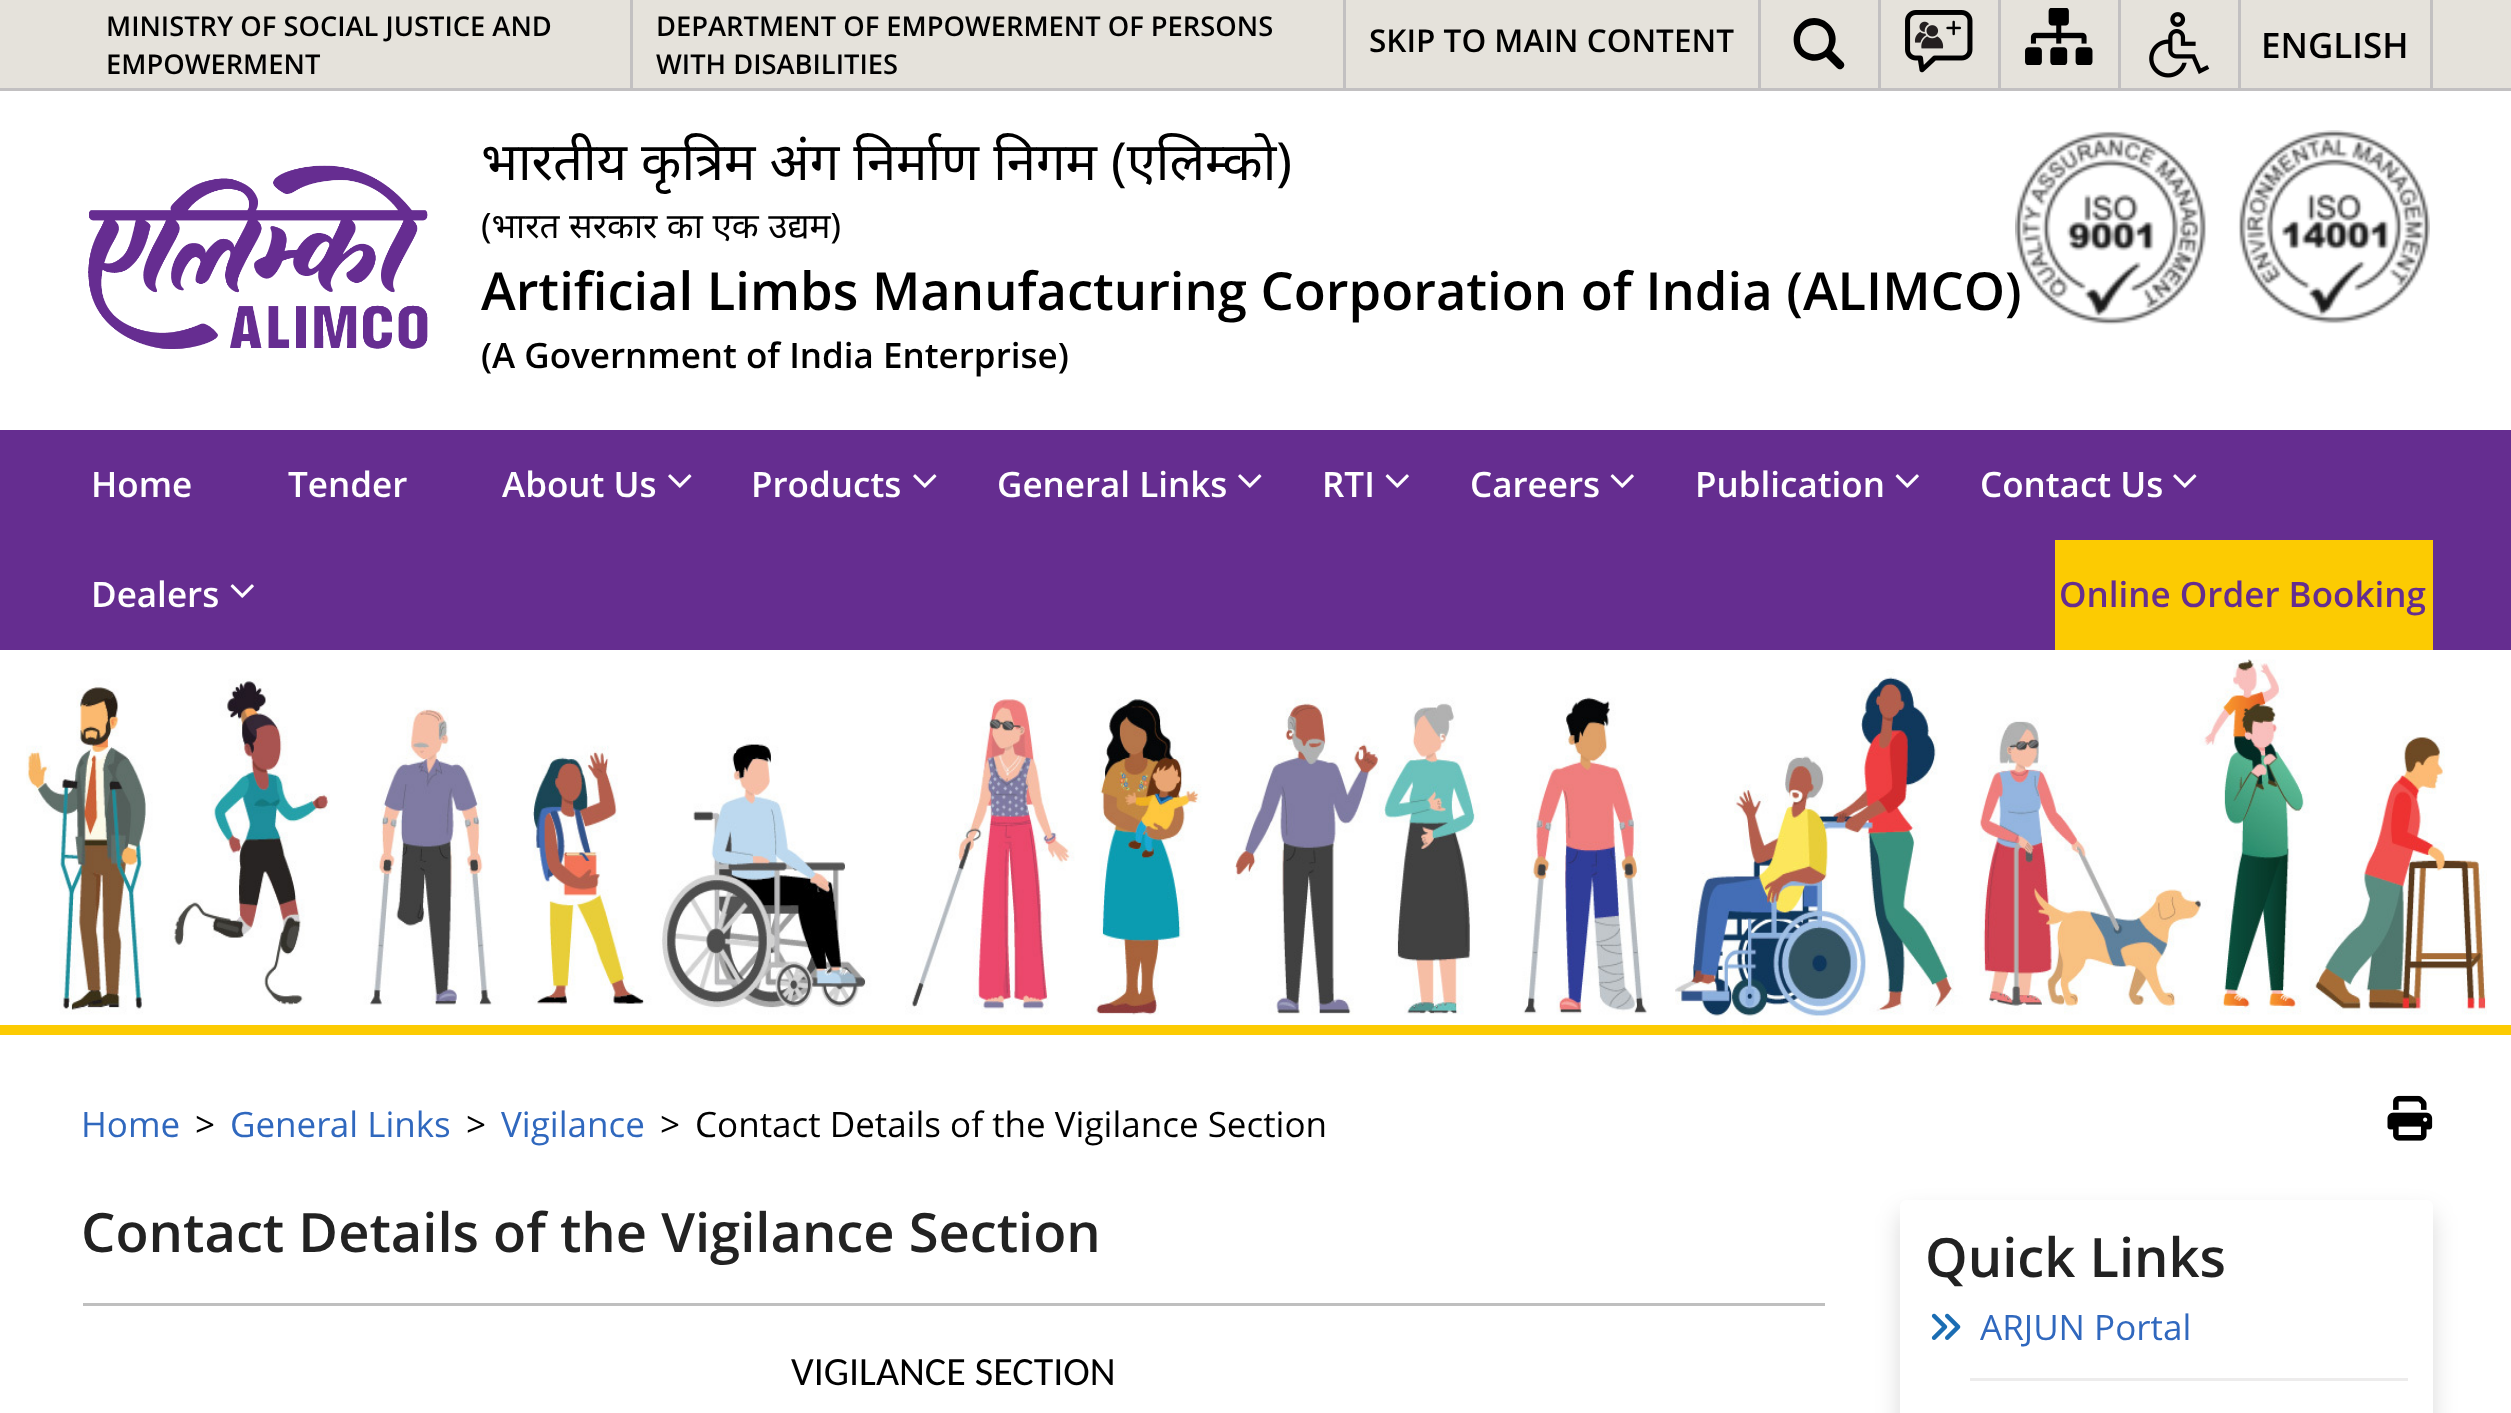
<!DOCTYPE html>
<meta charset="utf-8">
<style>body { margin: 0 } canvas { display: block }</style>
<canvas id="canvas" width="2511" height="1413"></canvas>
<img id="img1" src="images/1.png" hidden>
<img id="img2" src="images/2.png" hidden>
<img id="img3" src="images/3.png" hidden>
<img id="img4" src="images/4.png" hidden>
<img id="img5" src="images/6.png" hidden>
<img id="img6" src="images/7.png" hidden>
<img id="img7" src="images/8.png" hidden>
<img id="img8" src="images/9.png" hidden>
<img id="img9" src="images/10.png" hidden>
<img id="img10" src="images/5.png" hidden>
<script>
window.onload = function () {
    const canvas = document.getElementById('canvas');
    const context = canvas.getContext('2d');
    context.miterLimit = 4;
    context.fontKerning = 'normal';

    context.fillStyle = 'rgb(255, 255, 255)';
    context.fillRect(0, 0, 2511, 1413);
    context.fillStyle = 'rgb(229, 226, 219)';
    context.fillRect(0, 0, 2511, 88);
    context.fillStyle = 'rgb(194, 192, 193)';
    context.fillRect(0, 88, 2511, 3);
    context.fillRect(630, 0, 3, 88);
    context.fillRect(1343, 0, 3, 88);
    context.fillRect(1758, 0, 3, 88);
    context.fillStyle = 'rgb(0, 0, 0)';
    context.beginPath();
    context.moveTo(1843, 62);
    context.lineTo(1832, 51);
    context.bezierCurveTo(1847, 28, 1813, 4, 1797, 28);
    context.bezierCurveTo(1794, 32, 1793, 38, 1794, 44);
    context.bezierCurveTo(1795, 51, 1800, 56, 1806, 59);
    context.bezierCurveTo(1813, 62, 1820, 61, 1826, 57);
    context.lineTo(1837, 68);
    context.bezierCurveTo(1841, 72, 1847, 66, 1843, 62);
    context.closePath();
    context.moveTo(1800, 40);
    context.bezierCurveTo(1800, 20, 1829, 20, 1829, 40);
    context.bezierCurveTo(1829, 59, 1800, 59, 1800, 40);
    context.closePath();
    context.fill();
    context.fillStyle = 'rgb(194, 192, 193)';
    context.fillRect(1878, 0, 3, 88);
    context.drawImage(document.getElementById('img1'), 1905, 10, 68, 63);
    context.fillRect(1998, 0, 3, 88);
    context.drawImage(document.getElementById('img2'), 2025, 8, 68, 57);
    context.fillRect(2118, 0, 3, 88);
    context.drawImage(document.getElementById('img3'), 2149, 12, 61, 66);
    context.fillRect(2430, 0, 3, 88);
    context.fillRect(2238, 0, 3, 88);
    context.drawImage(document.getElementById('img4'), 88, 165, 340, 184);
    context.fillStyle = 'rgb(101, 45, 144)';
    context.fillRect(0, 430, 2511, 220);
    context.drawImage(document.getElementById('img5'), 668, 474, 24, 14);
    context.drawImage(document.getElementById('img5'), 913, 474, 24, 14);
    context.drawImage(document.getElementById('img5'), 1238, 474, 24, 14);
    context.drawImage(document.getElementById('img6'), 1385, 474, 24, 14);
    context.drawImage(document.getElementById('img6'), 1610, 474, 24, 14);
    context.drawImage(document.getElementById('img6'), 1895, 474, 24, 14);
    context.drawImage(document.getElementById('img5'), 2173, 474, 24, 14);
    context.drawImage(document.getElementById('img6'), 230, 584, 24, 14);
    context.fillStyle = 'rgb(252, 203, 2)';
    context.fillRect(2055, 540, 378, 110);
    context.fillRect(0, 1025, 2511, 10);
    context.drawImage(document.getElementById('img7'), 26, 659, 2461, 365);
    context.drawImage(document.getElementById('img8'), 2387, 1095, 46, 46);
    context.fillStyle = 'rgb(191, 191, 191)';
    context.fillRect(83, 1303, 1742, 3);
    context.fillStyle = 'rgba(0, 0, 0, 0.15)';
    context.filter = 'blur(12.5px)';
    context.beginPath();
    context.roundRect(1900, 1213, 533, 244, 6);
    context.fill();
    context.filter = 'none';
    context.fillStyle = 'rgb(255, 255, 255)';
    context.beginPath();
    context.roundRect(1900, 1200, 533, 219, 6);
    context.fill();
    context.fillStyle = 'rgb(237, 236, 236)';
    context.fillRect(1970, 1378, 438, 3);
    context.drawImage(document.getElementById('img9'), 1931, 1313, 30, 27);
    context.font = '600 27.3px Open Sans';
    context.fillStyle = 'rgb(0, 0, 0)';
    context.fillText('MINISTRY OF SOCIAL JUSTICE AND', 106, 36);
    context.fillText('EMPOWERMENT', 106, 74);
    context.fillText('DEPARTMENT OF EMPOWERMENT OF PERSONS', 656, 36);
    context.fillText('WITH DISABILITIES', 656, 74);
    context.font = '600 31.5px Open Sans';
    context.fillText('SKIP TO MAIN CONTENT', 1369, 52);
    context.font = '600 35px Open Sans';
    context.fillText('ENGLISH', 2261, 58);
    context.wordSpacing = '0.5px';
    context.font = '52.5px Noto Sans';
    context.fillText('भारतीय कृत्रिम अंग निर्माण निगम (एलिम्को)', 481, 180);
    context.font = '35px Noto Sans';
    context.fillText('(भारत सरकार का एक उद्यम)', 481, 238);
    context.wordSpacing = '0px';
    context.font = '600 52.5px Open Sans';
    context.fillText('Artificial Limbs Manufacturing Corporation of India (ALIMCO)', 481, 310);
    context.font = '600 35px Open Sans';
    context.fillText('(A Government of India Enterprise)', 481, 368);
    context.drawImage(document.getElementById('img10'), 2015, 130, 415, 195);
    context.fillStyle = 'rgb(255, 255, 255)';
    context.fillText('Home', 91, 497);
    context.fillText('Tender', 288, 497);
    context.fillText('About Us', 502, 497);
    context.fillText('Products', 751, 497);
    context.fillText('General Links', 997, 497);
    context.fillText('RTI', 1322, 497);
    context.fillText('Careers', 1470, 497);
    context.fillText('Publication', 1695, 497);
    context.fillText('Contact Us', 1980, 497);
    context.fillText('Dealers', 91, 607);
    context.fillStyle = 'rgb(101, 45, 144)';
    context.fillText('Online Order Booking', 2059, 607);
    context.font = '35px Open Sans';
    context.fillStyle = 'rgb(48, 104, 190)';
    context.fillText('Home', 81, 1137);
    context.fillStyle = 'rgb(0, 0, 0)';
    context.fillText('>', 195, 1137);
    context.fillStyle = 'rgb(48, 104, 190)';
    context.fillText('General Links', 230, 1137);
    context.fillStyle = 'rgb(0, 0, 0)';
    context.fillText('>', 466, 1137);
    context.fillStyle = 'rgb(48, 104, 190)';
    context.fillText('Vigilance', 501, 1137);
    context.fillStyle = 'rgb(0, 0, 0)';
    context.fillText('>', 660, 1137);
    context.fillText('Contact Details of the Vigilance Section', 695, 1137);
    context.font = '600 54.25px Open Sans';
    context.fillStyle = 'rgb(34, 34, 34)';
    context.fillText('Contact Details of the Vigilance Section', 81, 1252);
    context.font = '40px Carlito';
    context.fillStyle = 'rgb(0, 0, 0)';
    context.fillText('VIGILANCE SECTION', 791, 1385);
    context.font = '600 54.25px Open Sans';
    context.fillStyle = 'rgb(34, 34, 34)';
    context.fillText('Quick Links', 1925, 1277);
    context.font = '35px Open Sans';
    context.fillStyle = 'rgb(48, 104, 190)';
    context.fillText('ARJUN Portal', 1980, 1340);
};
</script>
